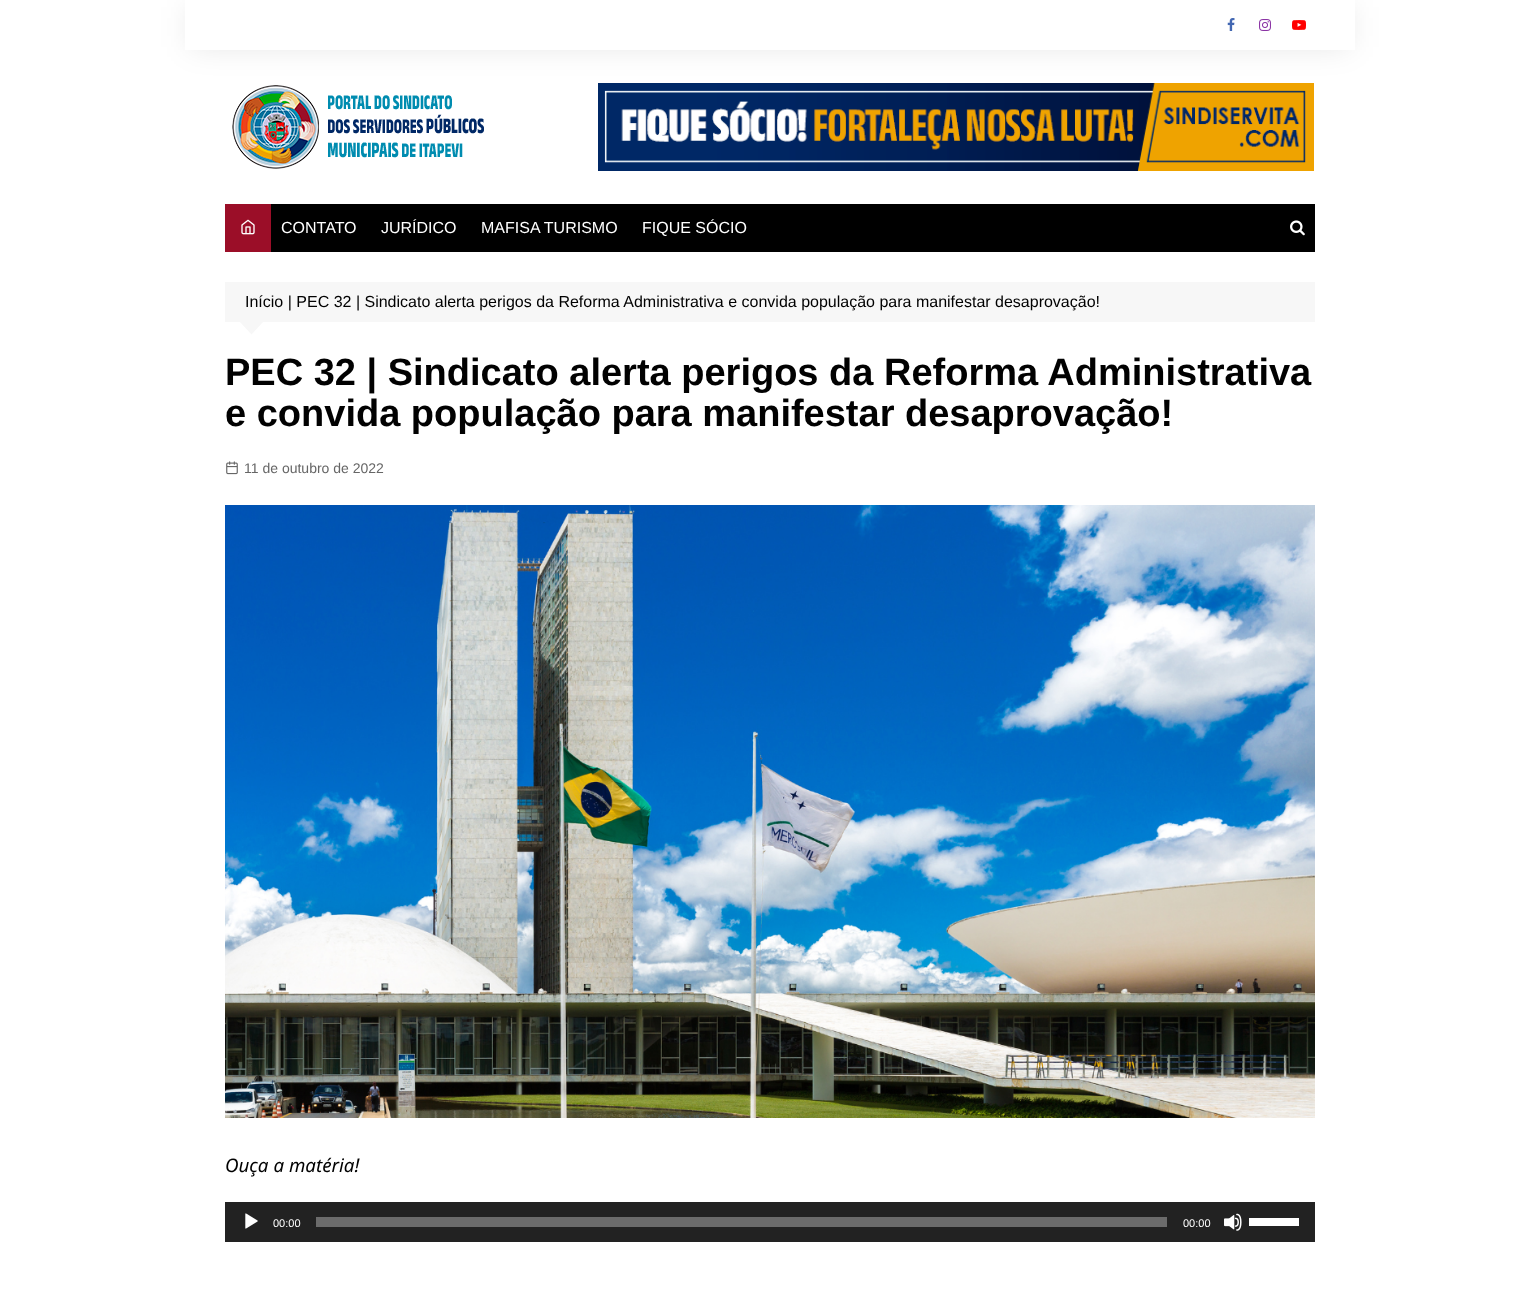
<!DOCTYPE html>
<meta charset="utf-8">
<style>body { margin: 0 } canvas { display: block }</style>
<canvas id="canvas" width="1539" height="1306"></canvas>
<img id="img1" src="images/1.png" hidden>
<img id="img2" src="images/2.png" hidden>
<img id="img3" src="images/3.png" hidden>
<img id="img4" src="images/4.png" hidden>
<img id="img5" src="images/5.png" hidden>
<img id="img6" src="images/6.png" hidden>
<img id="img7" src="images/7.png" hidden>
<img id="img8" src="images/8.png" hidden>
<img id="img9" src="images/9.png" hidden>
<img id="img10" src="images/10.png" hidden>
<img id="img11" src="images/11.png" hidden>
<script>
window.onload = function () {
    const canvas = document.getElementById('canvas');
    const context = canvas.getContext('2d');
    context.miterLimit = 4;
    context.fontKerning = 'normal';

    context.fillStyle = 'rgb(255, 255, 255)';
    context.fillRect(0, 0, 1539, 1306);
    context.save();
    context.beginPath();
    context.moveTo(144, 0);
    context.lineTo(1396, 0);
    context.lineTo(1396, 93);
    context.lineTo(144, 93);
    context.closePath();
    context.moveTo(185, 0);
    context.lineTo(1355, 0);
    context.lineTo(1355, 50);
    context.lineTo(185, 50);
    context.closePath();
    context.clip('evenodd');
    context.fillStyle = 'rgba(0, 0, 0, 0.1)';
    context.filter = 'blur(15px)';
    context.beginPath();
    context.rect(190, 7, 1160, 40);
    context.fill();
    context.filter = 'none';
    context.restore();
    context.drawImage(document.getElementById('img1'), 1227, 18, 8, 13);
    context.drawImage(document.getElementById('img2'), 1259, 19, 12, 12);
    context.drawImage(document.getElementById('img3'), 1292, 20, 14, 10);
    context.drawImage(document.getElementById('img4'), 232, 85, 252, 84);
    context.drawImage(document.getElementById('img5'), 598, 83, 716, 88);
    context.fillStyle = 'rgb(0, 0, 0)';
    context.fillRect(271, 204, 1044, 48);
    context.fillStyle = 'rgb(155, 14, 40)';
    context.fillRect(225, 204, 46, 48);
    context.drawImage(document.getElementById('img6'), 241, 219, 14, 16);
    context.drawImage(document.getElementById('img7'), 1290, 220, 15, 16);
    context.fillStyle = 'rgb(247, 247, 247)';
    context.fillRect(225, 282, 1090, 40);
    context.beginPath();
    context.moveTo(239.5, 321.5);
    context.lineTo(263.5, 321.5);
    context.lineTo(251.5, 334.5);
    context.closePath();
    context.fill();
    context.drawImage(document.getElementById('img8'), 226, 461, 12, 14);
    context.drawImage(document.getElementById('img9'), 225, 505, 1090, 613);
    context.fillStyle = 'rgb(34, 34, 34)';
    context.fillRect(225, 1202, 1090, 40);
    context.drawImage(document.getElementById('img10'), 245, 1213, 13, 16);
    context.fillStyle = 'rgb(107, 107, 107)';
    context.fillRect(316, 1217, 851, 10);
    context.drawImage(document.getElementById('img11'), 1224, 1213, 18, 18);
    context.fillStyle = 'rgb(255, 255, 255)';
    context.fillRect(1249, 1218, 50, 8);
    context.font = '16px Liberation Sans';
    context.fillText('CONTATO', 281, 233);
    context.fillText('JURÍDICO', 381, 233);
    context.fillText('MAFISA TURISMO', 481, 233);
    context.fillText('FIQUE SÓCIO', 642, 233);
    context.fillStyle = 'rgb(1, 1, 1)';
    context.fillText('Início | PEC 32 | Sindicato alerta perigos da Reforma Administrativa e convida população para manifestar desaprovação!', 245, 307);
    context.font = 'bold 38px Liberation Sans';
    context.fillText('PEC 32 | Sindicato alerta perigos da Reforma Administrativa', 225, 385);
    context.fillText('e convida população para manifestar desaprovação!', 225, 426);
    context.font = '14px Liberation Sans';
    context.fillStyle = 'rgb(102, 102, 102)';
    context.fillText('11 de outubro de 2022', 244, 473);
    context.font = 'italic 18.75px Noto Sans';
    context.fillStyle = 'rgb(1, 1, 1)';
    context.fillText('Ouça a matéria!', 225, 1172);
    context.font = '11px Liberation Sans';
    context.fillStyle = 'rgb(255, 255, 255)';
    context.fillText('00:00', 273, 1227);
    context.fillText('00:00', 1183, 1227);
};
</script>
